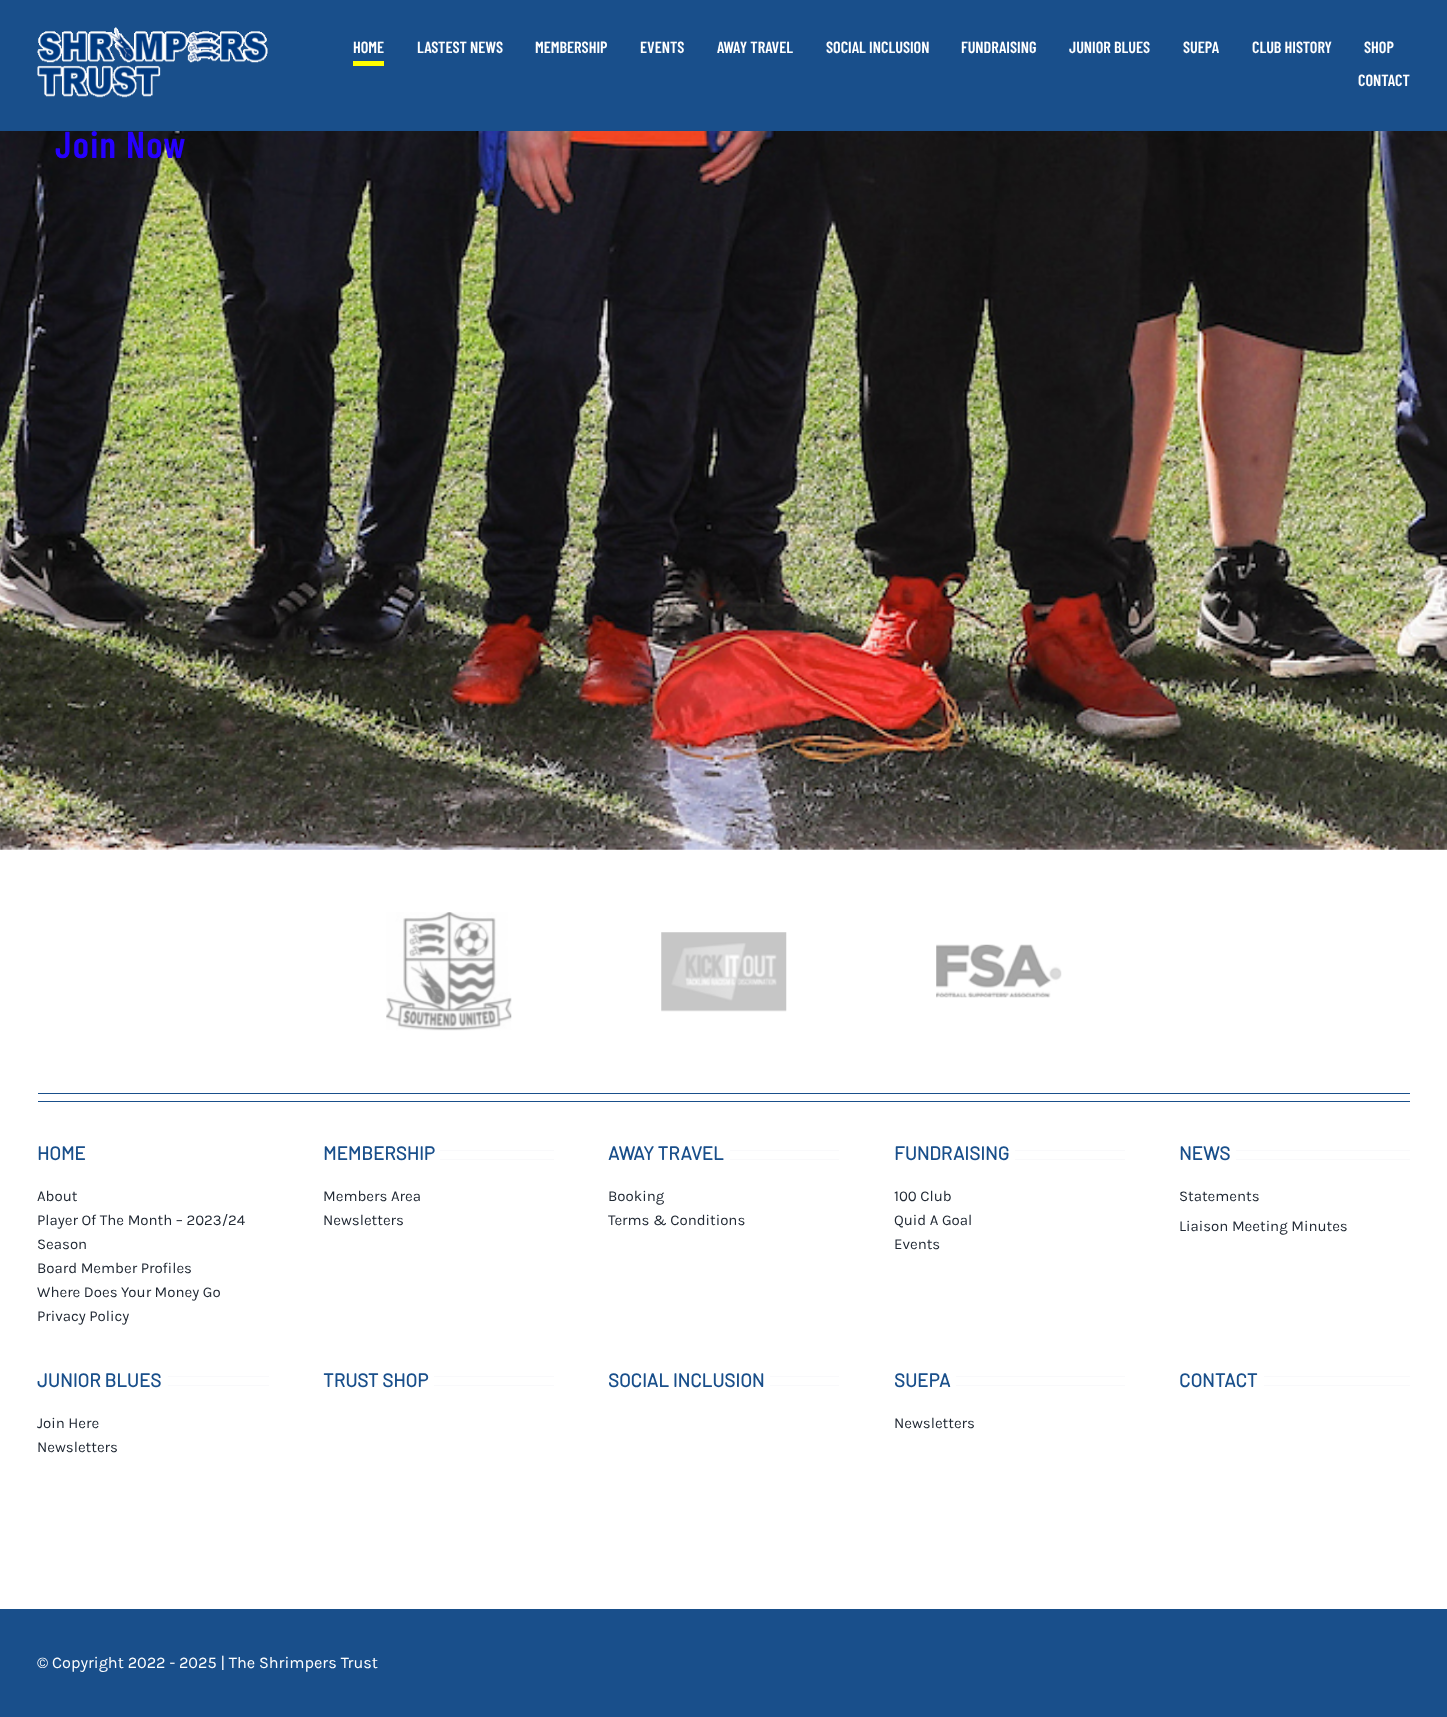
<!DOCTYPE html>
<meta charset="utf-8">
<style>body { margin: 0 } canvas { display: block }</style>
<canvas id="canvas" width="1447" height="1717"></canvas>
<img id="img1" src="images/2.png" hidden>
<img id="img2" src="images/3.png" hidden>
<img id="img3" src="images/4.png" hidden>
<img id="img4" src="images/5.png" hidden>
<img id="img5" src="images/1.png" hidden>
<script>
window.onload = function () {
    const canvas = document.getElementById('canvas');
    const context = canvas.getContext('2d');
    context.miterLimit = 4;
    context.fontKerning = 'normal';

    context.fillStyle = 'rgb(255, 255, 255)';
    context.fillRect(0, 0, 1447, 1717);
    context.drawImage(document.getElementById('img1'), 0, 131, 1447, 719);
    context.drawImage(document.getElementById('img2'), 386, 912, 126, 119);
    context.drawImage(document.getElementById('img3'), 661, 932, 126, 80);
    context.drawImage(document.getElementById('img4'), 936, 944, 126, 54);
    context.fillStyle = 'rgb(25, 79, 139)';
    context.fillRect(38, 1093, 1372, 1);
    context.fillRect(38, 1101, 1372, 1);
    context.fillStyle = 'rgb(249, 249, 251)';
    context.fillRect(440, 1150, 114, 1);
    context.fillRect(440, 1159, 114, 1);
    context.fillRect(730, 1150, 109, 1);
    context.fillRect(730, 1159, 109, 1);
    context.fillRect(1015, 1150, 110, 1);
    context.fillRect(1015, 1159, 110, 1);
    context.fillRect(1236, 1150, 174, 1);
    context.fillRect(1236, 1159, 174, 1);
    context.fillRect(168, 1376, 101, 1);
    context.fillRect(168, 1385, 101, 1);
    context.fillRect(434, 1376, 120, 1);
    context.fillRect(434, 1385, 120, 1);
    context.fillRect(770, 1376, 69, 1);
    context.fillRect(770, 1385, 69, 1);
    context.fillRect(956, 1376, 169, 1);
    context.fillRect(956, 1385, 169, 1);
    context.fillRect(1264, 1376, 146, 1);
    context.fillRect(1264, 1385, 146, 1);
    context.fillStyle = 'rgb(25, 79, 139)';
    context.fillRect(0, 1609, 1447, 108);
    context.letterSpacing = '1.25px';
    context.font = '600 37.5px Barlow Condensed';
    context.fillStyle = 'rgb(38, 0, 255)';
    context.fillText('Join Now', 55, 158);
    context.fillStyle = 'rgb(25, 79, 139)';
    context.fillRect(0, 0, 1447, 131);
    context.letterSpacing = '0px';
    context.font = '600 16.25px Barlow Condensed';
    context.fillStyle = 'rgb(255, 255, 255)';
    context.fillText('CONTACT', 1358, 86);
    context.fillText('SHOP', 1364, 53);
    context.fillText('CLUB HISTORY', 1252, 53);
    context.fillText('SUEPA', 1183, 53);
    context.fillText('JUNIOR BLUES', 1069, 53);
    context.fillText('FUNDRAISING', 961, 53);
    context.fillText('SOCIAL INCLUSION', 826, 53);
    context.fillText('AWAY TRAVEL', 717, 53);
    context.fillText('EVENTS', 640, 53);
    context.fillText('MEMBERSHIP', 535, 53);
    context.fillText('LASTEST NEWS', 417, 53);
    context.fillText('HOME', 353, 53);
    context.fillStyle = 'rgb(255, 255, 0)';
    context.fillRect(353, 61, 31, 5);
    context.drawImage(document.getElementById('img5'), 37, 27, 231, 71);
    context.font = 'bold 18.75px Barlow';
    context.fillStyle = 'rgb(25, 79, 139)';
    context.fillText('HOME', 37, 1160);
    context.font = '15px Karla';
    context.fillStyle = 'rgb(33, 41, 52)';
    context.fillText('About', 37, 1201);
    context.fillText('Player Of The Month – 2023/24', 37, 1225);
    context.fillText('Season', 37, 1249);
    context.fillText('Board Member Profiles', 37, 1273);
    context.fillText('Where Does Your Money Go', 37, 1297);
    context.fillText('Privacy Policy', 37, 1321);
    context.font = 'bold 18.75px Barlow';
    context.fillStyle = 'rgb(25, 79, 139)';
    context.fillText('MEMBERSHIP', 323, 1160);
    context.font = '15px Karla';
    context.fillStyle = 'rgb(33, 41, 52)';
    context.fillText('Members Area', 323, 1201);
    context.fillText('Newsletters', 323, 1225);
    context.font = 'bold 18.75px Barlow';
    context.fillStyle = 'rgb(25, 79, 139)';
    context.fillText('AWAY TRAVEL', 608, 1160);
    context.font = '15px Karla';
    context.fillStyle = 'rgb(33, 41, 52)';
    context.fillText('Booking', 608, 1201);
    context.fillText('Terms & Conditions', 608, 1225);
    context.font = 'bold 18.75px Barlow';
    context.fillStyle = 'rgb(25, 79, 139)';
    context.fillText('FUNDRAISING', 894, 1160);
    context.font = '15px Karla';
    context.fillStyle = 'rgb(33, 41, 52)';
    context.fillText('100 Club', 894, 1201);
    context.fillText('Quid A Goal', 894, 1225);
    context.fillText('Events', 894, 1249);
    context.font = 'bold 18.75px Barlow';
    context.fillStyle = 'rgb(25, 79, 139)';
    context.fillText('NEWS', 1179, 1160);
    context.font = '15px Karla';
    context.fillStyle = 'rgb(33, 41, 52)';
    context.fillText('Statements', 1179, 1201);
    context.fillText('Liaison Meeting Minutes', 1179, 1231);
    context.font = 'bold 18.75px Barlow';
    context.fillStyle = 'rgb(25, 79, 139)';
    context.fillText('JUNIOR BLUES', 37, 1387);
    context.font = '15px Karla';
    context.fillStyle = 'rgb(33, 41, 52)';
    context.fillText('Join Here', 37, 1428);
    context.fillText('Newsletters', 37, 1452);
    context.font = 'bold 18.75px Barlow';
    context.fillStyle = 'rgb(25, 79, 139)';
    context.fillText('TRUST SHOP', 323, 1387);
    context.fillText('SOCIAL INCLUSION', 608, 1387);
    context.fillText('SUEPA', 894, 1387);
    context.font = '15px Karla';
    context.fillStyle = 'rgb(33, 41, 52)';
    context.fillText('Newsletters', 894, 1428);
    context.font = 'bold 18.75px Barlow';
    context.fillStyle = 'rgb(25, 79, 139)';
    context.fillText('CONTACT', 1179, 1387);
    context.font = '16.25px Karla';
    context.fillStyle = 'rgb(255, 255, 255)';
    context.fillText('© Copyright 2022 - 2025 | The Shrimpers Trust', 37, 1668);
};
</script>
